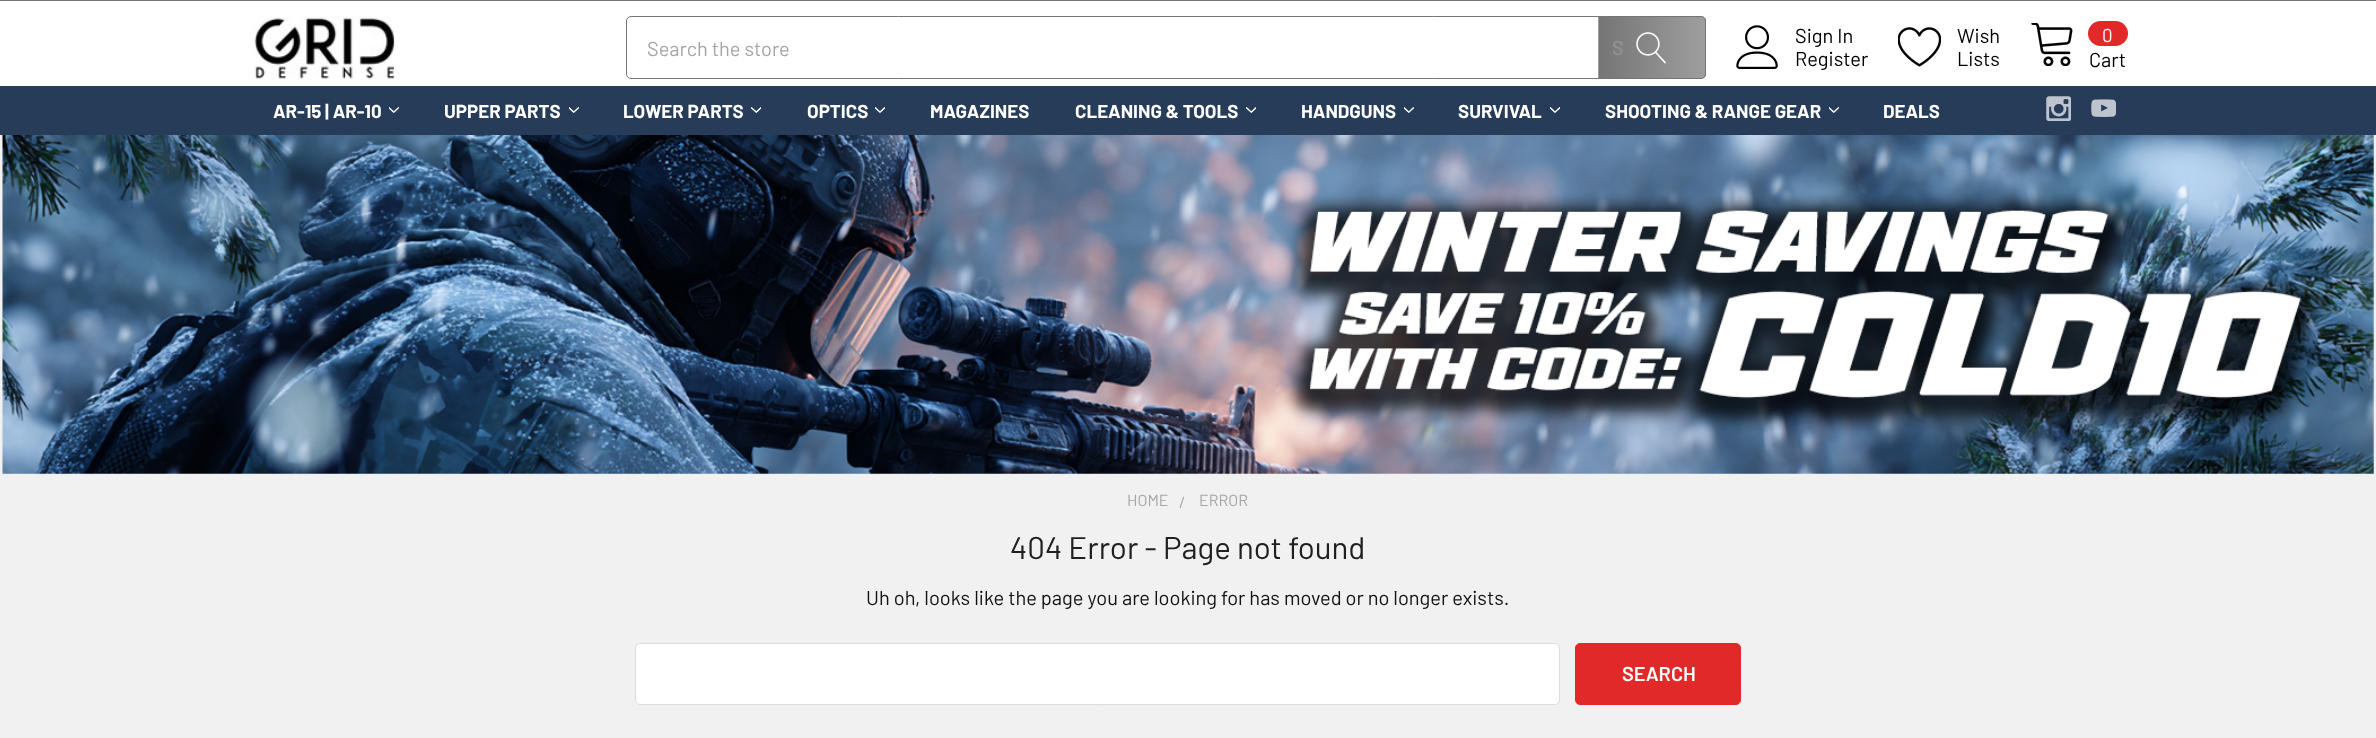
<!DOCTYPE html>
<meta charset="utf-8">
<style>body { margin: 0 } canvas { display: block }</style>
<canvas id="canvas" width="2376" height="738"></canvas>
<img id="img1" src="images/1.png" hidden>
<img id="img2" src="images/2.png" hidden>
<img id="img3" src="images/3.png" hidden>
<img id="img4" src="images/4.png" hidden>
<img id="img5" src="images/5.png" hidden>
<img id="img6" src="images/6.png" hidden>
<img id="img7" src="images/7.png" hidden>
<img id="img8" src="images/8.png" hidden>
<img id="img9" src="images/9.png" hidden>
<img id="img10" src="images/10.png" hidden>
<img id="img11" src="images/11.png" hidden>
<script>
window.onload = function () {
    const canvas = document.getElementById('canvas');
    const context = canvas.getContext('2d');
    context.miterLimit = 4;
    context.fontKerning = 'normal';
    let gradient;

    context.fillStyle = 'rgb(241, 241, 242)';
    context.fillRect(0, 0, 2376, 738);
    context.fillStyle = 'rgb(255, 255, 255)';
    context.fillRect(0, 1, 2376, 85);
    context.fillStyle = 'rgb(117, 117, 117)';
    context.fillRect(0, 0, 2376, 1);
    context.drawImage(document.getElementById('img1'), 253, 16, 144, 63);
    context.beginPath();
    context.roundRect(626.5, 16.5, 1079, 62, 4.5);
    context.strokeStyle = 'rgb(117, 117, 117)';
    context.stroke();
    gradient = context.createLinearGradient(1493, 48, 1599, 48);
    gradient.addColorStop(0, 'rgb(117, 117, 117)');
    gradient.addColorStop(1, 'rgba(117, 117, 117, 0.7)');
    context.fillStyle = gradient;
    context.fillRect(1598, 16, 1, 63);
    context.save();
    context.beginPath();
    context.roundRect(1598, 16, 108, 63, [0, 5, 5, 0]);
    context.clip();
    gradient = context.createLinearGradient(1599, 48, 1705, 48);
    gradient.addColorStop(0, 'rgb(117, 117, 117)');
    gradient.addColorStop(1, 'rgba(117, 117, 117, 0.7)');
    context.fillStyle = gradient;
    context.fillRect(1599, 16, 106, 63);
    gradient = context.createLinearGradient(1705, 48, 1811, 48);
    gradient.addColorStop(0, 'rgb(117, 117, 117)');
    gradient.addColorStop(1, 'rgba(117, 117, 117, 0.7)');
    context.fillStyle = gradient;
    context.fillRect(1705, 16, 1, 63);
    context.restore();
    context.drawImage(document.getElementById('img2'), 1636, 32, 30, 32);
    context.drawImage(document.getElementById('img3'), 1736, 25, 42, 44);
    context.drawImage(document.getElementById('img4'), 1898, 27, 43, 40);
    context.drawImage(document.getElementById('img5'), 2031, 23, 42, 43);
    context.fillStyle = 'rgb(225, 41, 41)';
    context.beginPath();
    context.roundRect(2088, 21, 40, 25, 12.5);
    context.fill();
    context.fillStyle = 'rgb(39, 60, 89)';
    context.fillRect(0, 86, 2376, 49);
    context.drawImage(document.getElementById('img6'), 389, 107, 10, 6);
    context.drawImage(document.getElementById('img6'), 569, 107, 10, 6);
    context.drawImage(document.getElementById('img7'), 751, 107, 10, 6);
    context.drawImage(document.getElementById('img8'), 875, 107, 10, 6);
    context.drawImage(document.getElementById('img7'), 1246, 107, 10, 6);
    context.drawImage(document.getElementById('img6'), 1404, 107, 10, 6);
    context.drawImage(document.getElementById('img8'), 1550, 107, 10, 6);
    context.drawImage(document.getElementById('img6'), 1829, 107, 10, 6);
    context.drawImage(document.getElementById('img9'), 2046, 96, 25, 25);
    context.drawImage(document.getElementById('img10'), 2091, 99, 25, 18);
    context.drawImage(document.getElementById('img11'), 2, 135, 2372, 339);
    context.fillStyle = 'rgb(255, 255, 255)';
    context.beginPath();
    context.roundRect(635.5, 643.5, 924, 61, 4.5);
    context.fill();
    context.strokeStyle = 'rgb(220, 220, 220)';
    context.stroke();
    context.fillStyle = 'rgb(225, 41, 41)';
    context.beginPath();
    context.roundRect(1575.5, 643.5, 165, 61, 4.5);
    context.fill();
    context.strokeStyle = 'rgb(225, 41, 41)';
    context.stroke();
    context.font = '20px Barlow';
    context.fillStyle = 'rgb(165, 165, 165)';
    context.fillText('Search the store', 647, 56);
    context.font = '600 20px Barlow';
    context.fillStyle = 'rgb(144, 144, 144)';
    context.fillText('S', 1612, 55);
    context.font = '20px Barlow';
    context.fillStyle = 'rgb(0, 0, 0)';
    context.fillText('Sign In', 1795, 43);
    context.fillText('Register', 1795, 66);
    context.fillText('Wish', 1957, 43);
    context.fillText('Lists', 1957, 66);
    context.font = '18.75px Barlow';
    context.fillStyle = 'rgb(255, 255, 255)';
    context.fillText('0', 2102, 42);
    context.font = '20px Barlow';
    context.fillStyle = 'rgb(0, 0, 0)';
    context.fillText('Cart', 2089, 67);
    context.font = 'bold 18.75px Barlow';
    context.fillStyle = 'rgb(255, 255, 255)';
    context.fillText('AR-15 | AR-10', 273, 118);
    context.fillText('UPPER PARTS', 444, 118);
    context.fillText('LOWER PARTS', 623, 118);
    context.fillText('OPTICS', 807, 118);
    context.fillText('MAGAZINES', 930, 118);
    context.fillText('CLEANING & TOOLS', 1075, 118);
    context.fillText('HANDGUNS', 1301, 118);
    context.fillText('SURVIVAL', 1458, 118);
    context.fillText('SHOOTING & RANGE GEAR', 1605, 118);
    context.fillText('DEALS', 1883, 118);
    context.font = '16px Barlow';
    context.fillStyle = 'rgb(165, 165, 165)';
    context.fillText('HOME', 1127, 506);
    context.fillText('/', 1179, 508);
    context.fillText('ERROR', 1199, 506);
    context.font = '31.25px Barlow';
    context.fillStyle = 'rgb(32, 32, 32)';
    context.fillText('404 Error - Page not found', 1010, 559);
    context.font = '20px Barlow';
    context.fillStyle = 'rgb(19, 19, 19)';
    context.fillText('Uh oh, looks like the page you are looking for has moved or no longer exists.', 866, 605);
    context.font = '600 20px Barlow';
    context.fillStyle = 'rgb(255, 255, 255)';
    context.fillText('SEARCH', 1622, 681);
};
</script>
